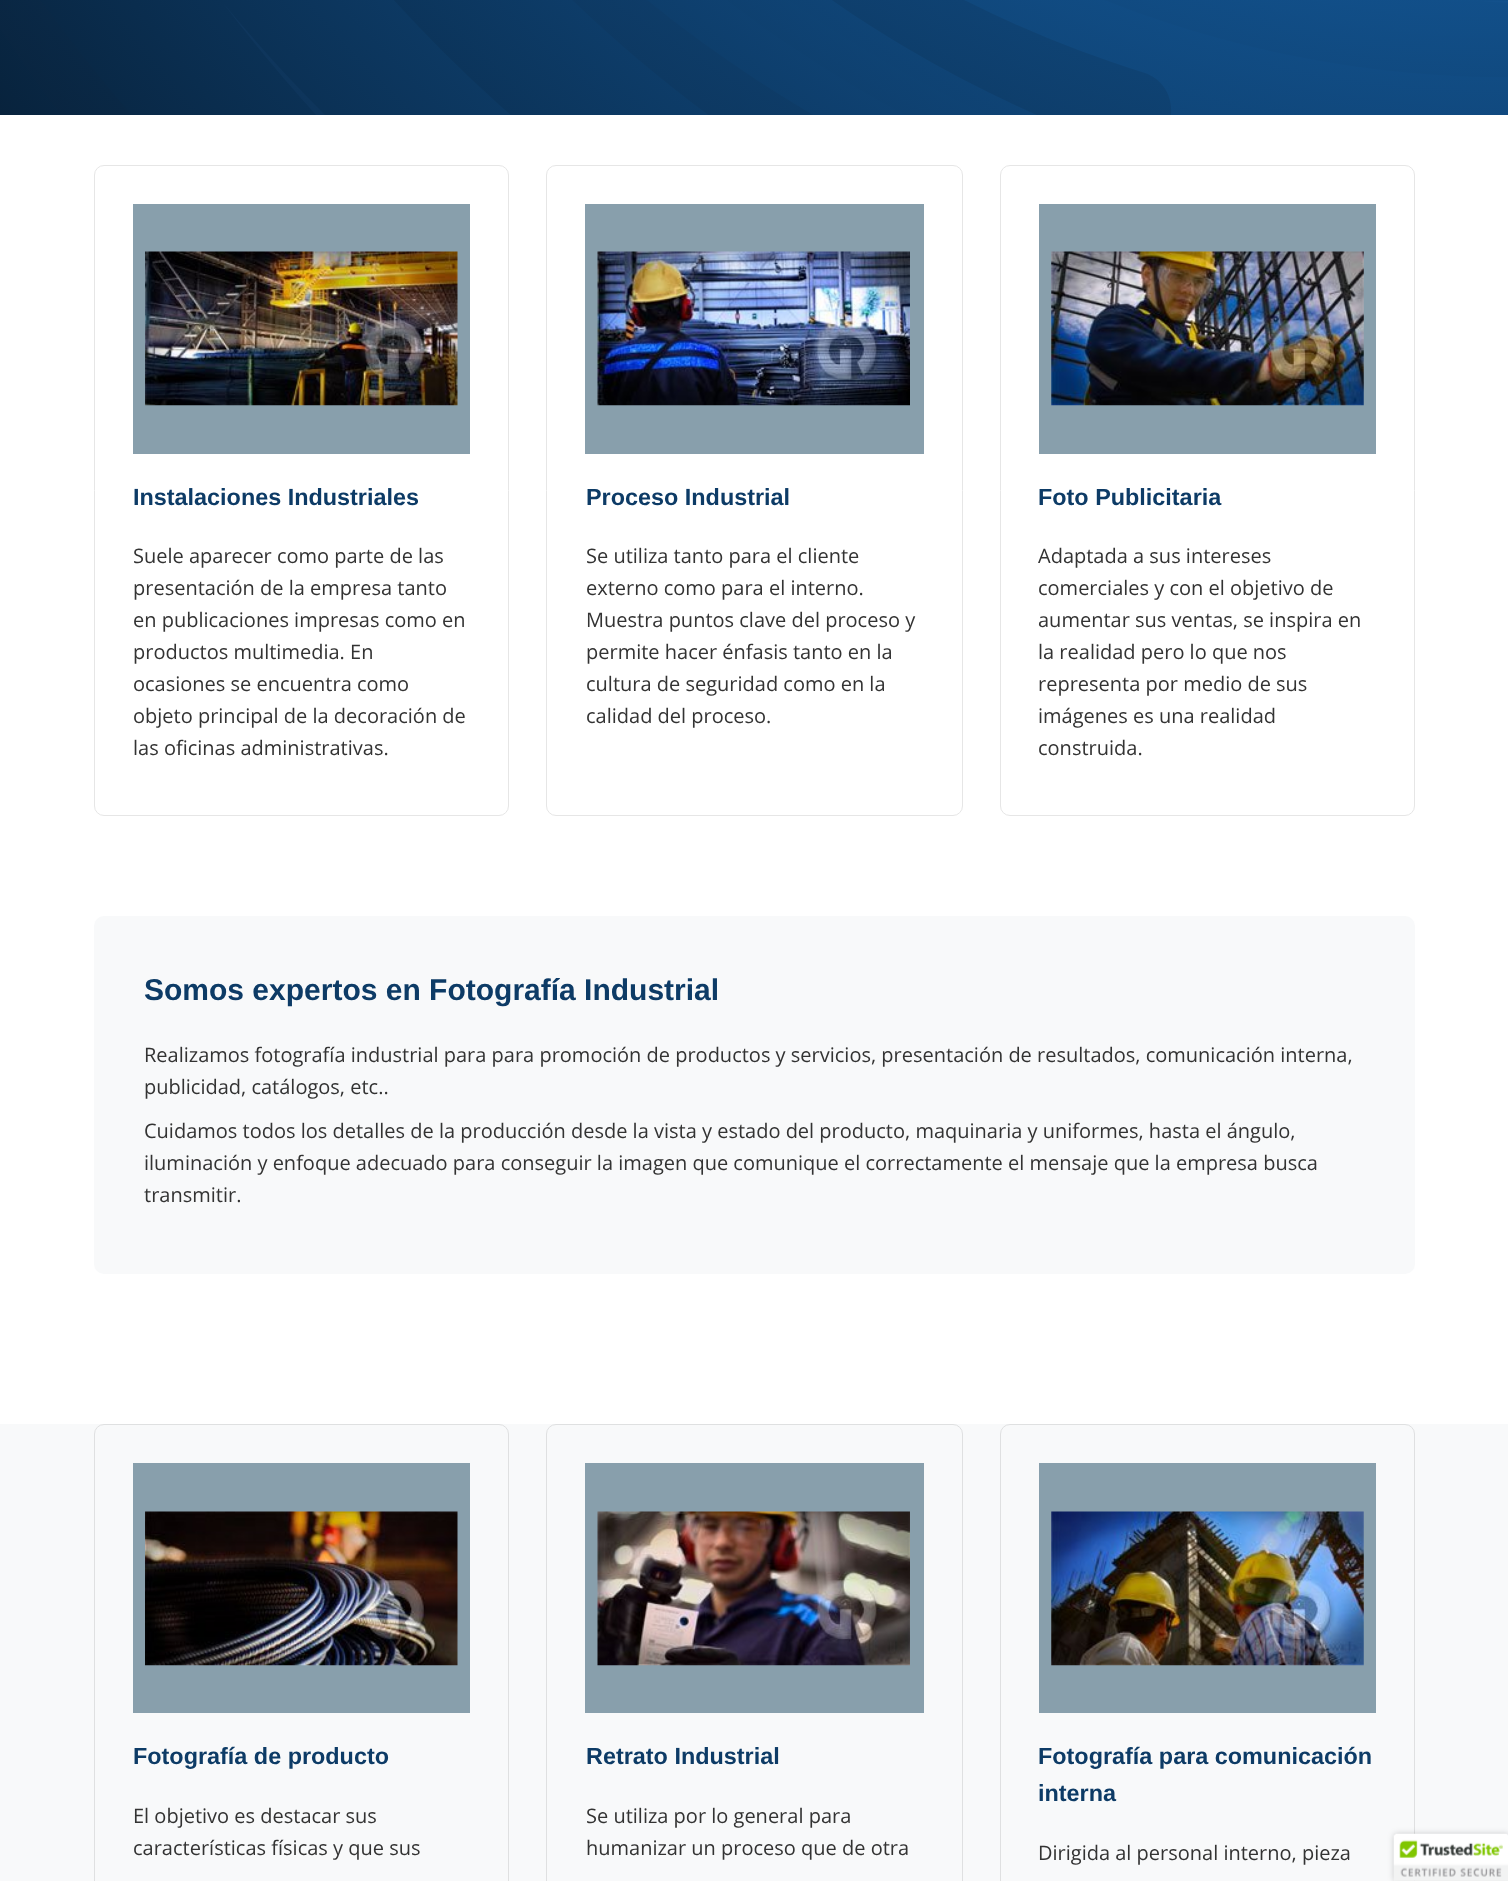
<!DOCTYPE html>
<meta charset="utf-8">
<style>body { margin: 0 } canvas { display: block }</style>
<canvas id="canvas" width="1508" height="1881"></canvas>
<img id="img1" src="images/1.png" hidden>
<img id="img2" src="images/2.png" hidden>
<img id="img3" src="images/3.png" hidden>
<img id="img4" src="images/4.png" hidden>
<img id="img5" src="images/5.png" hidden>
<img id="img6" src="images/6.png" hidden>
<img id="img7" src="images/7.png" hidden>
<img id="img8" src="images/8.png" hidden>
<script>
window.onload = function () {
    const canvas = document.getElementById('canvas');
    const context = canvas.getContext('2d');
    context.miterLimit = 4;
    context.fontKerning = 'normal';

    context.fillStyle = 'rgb(255, 255, 255)';
    context.fillRect(0, 0, 1508, 1881);
    context.drawImage(document.getElementById('img1'), 0, 0, 1508, 115);
    context.beginPath();
    context.roundRect(94.5, 165.5, 414, 650, 9.5);
    context.strokeStyle = 'rgb(230, 230, 230)';
    context.stroke();
    context.fillStyle = 'rgb(136, 159, 172)';
    context.fillRect(133, 204, 337, 250);
    context.drawImage(document.getElementById('img2'), 145, 251, 313, 155);
    context.beginPath();
    context.roundRect(546.5, 165.5, 416, 650, 9.5);
    context.stroke();
    context.fillRect(585, 204, 339, 250);
    context.drawImage(document.getElementById('img3'), 597, 251, 313, 155);
    context.beginPath();
    context.roundRect(1000.5, 165.5, 414, 650, 9.5);
    context.stroke();
    context.fillRect(1039, 204, 337, 250);
    context.drawImage(document.getElementById('img4'), 1051, 251, 313, 155);
    context.fillStyle = 'rgb(248, 249, 250)';
    context.beginPath();
    context.roundRect(94, 916, 1321, 358, 10);
    context.fill();
    context.fillRect(0, 1424, 1508, 457);
    context.beginPath();
    context.roundRect(94.5, 1424.5, 414, 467, 9.5);
    context.strokeStyle = 'rgb(223, 224, 225)';
    context.stroke();
    context.fillStyle = 'rgb(136, 159, 172)';
    context.fillRect(133, 1463, 337, 250);
    context.drawImage(document.getElementById('img5'), 145, 1511, 313, 155);
    context.beginPath();
    context.roundRect(546.5, 1424.5, 416, 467, 9.5);
    context.stroke();
    context.fillRect(585, 1463, 339, 250);
    context.drawImage(document.getElementById('img6'), 597, 1511, 313, 155);
    context.beginPath();
    context.roundRect(1000.5, 1424.5, 414, 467, 9.5);
    context.stroke();
    context.fillRect(1039, 1463, 337, 250);
    context.drawImage(document.getElementById('img7'), 1051, 1511, 313, 155);
    context.fillStyle = 'rgba(0, 0, 0, 0.2)';
    context.filter = 'blur(3px)';
    context.beginPath();
    context.roundRect(1394, 1834, 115, 47, 2.5);
    context.fill();
    context.filter = 'none';
    context.drawImage(document.getElementById('img8'), 1393, 1833, 115, 48);
    context.font = 'bold 23.4px Liberation Sans';
    context.fillStyle = 'rgb(13, 59, 102)';
    context.fillText('Instalaciones Industriales', 133, 505);
    context.font = '20px Open Sans';
    context.fillStyle = 'rgb(51, 51, 51)';
    context.fillText('Suele aparecer como parte de las', 133, 563);
    context.fillText('presentación de la empresa tanto', 133, 595);
    context.fillText('en publicaciones impresas como en', 133, 627);
    context.fillText('productos multimedia. En', 133, 659);
    context.fillText('ocasiones se encuentra como', 133, 691);
    context.fillText('objeto principal de la decoración de', 133, 723);
    context.fillText('las oficinas administrativas.', 133, 755);
    context.font = 'bold 23.4px Liberation Sans';
    context.fillStyle = 'rgb(13, 59, 102)';
    context.fillText('Proceso Industrial', 586, 505);
    context.font = '20px Open Sans';
    context.fillStyle = 'rgb(51, 51, 51)';
    context.fillText('Se utiliza tanto para el cliente', 586, 563);
    context.fillText('externo como para el interno.', 586, 595);
    context.fillText('Muestra puntos clave del proceso y', 586, 627);
    context.fillText('permite hacer énfasis tanto en la', 586, 659);
    context.fillText('cultura de seguridad como en la', 586, 691);
    context.fillText('calidad del proceso.', 586, 723);
    context.font = 'bold 23.4px Liberation Sans';
    context.fillStyle = 'rgb(13, 59, 102)';
    context.fillText('Foto Publicitaria', 1038, 505);
    context.font = '20px Open Sans';
    context.fillStyle = 'rgb(51, 51, 51)';
    context.fillText('Adaptada a sus intereses', 1038, 563);
    context.fillText('comerciales y con el objetivo de', 1038, 595);
    context.fillText('aumentar sus ventas, se inspira en', 1038, 627);
    context.fillText('la realidad pero lo que nos', 1038, 659);
    context.fillText('representa por medio de sus', 1038, 691);
    context.fillText('imágenes es una realidad', 1038, 723);
    context.fillText('construida.', 1038, 755);
    context.font = 'bold 30px Liberation Sans';
    context.fillStyle = 'rgb(13, 59, 102)';
    context.fillText('Somos expertos en Fotografía Industrial', 144, 1000);
    context.font = '20px Open Sans';
    context.fillStyle = 'rgb(51, 51, 51)';
    context.fillText('Realizamos fotografía industrial para para promoción de productos y servicios, presentación de resultados, comunicación interna,', 144, 1062);
    context.fillText('publicidad, catálogos, etc..', 144, 1094);
    context.fillText('Cuidamos todos los detalles de la producción desde la vista y estado del producto, maquinaria y uniformes, hasta el ángulo,', 144, 1138);
    context.fillText('iluminación y enfoque adecuado para conseguir la imagen que comunique el correctamente el mensaje que la empresa busca', 144, 1170);
    context.fillText('transmitir.', 144, 1202);
    context.font = 'bold 23.4px Liberation Sans';
    context.fillStyle = 'rgb(13, 59, 102)';
    context.fillText('Fotografía de producto', 133, 1764);
    context.font = '20px Open Sans';
    context.fillStyle = 'rgb(51, 51, 51)';
    context.fillText('El objetivo es destacar sus', 133, 1823);
    context.fillText('características físicas y que sus', 133, 1855);
    context.font = 'bold 23.4px Liberation Sans';
    context.fillStyle = 'rgb(13, 59, 102)';
    context.fillText('Retrato Industrial', 586, 1764);
    context.font = '20px Open Sans';
    context.fillStyle = 'rgb(51, 51, 51)';
    context.fillText('Se utiliza por lo general para', 586, 1823);
    context.fillText('humanizar un proceso que de otra', 586, 1855);
    context.font = 'bold 23.4px Liberation Sans';
    context.fillStyle = 'rgb(13, 59, 102)';
    context.fillText('Fotografía para comunicación', 1038, 1764);
    context.fillText('interna', 1038, 1801);
    context.font = '20px Open Sans';
    context.fillStyle = 'rgb(51, 51, 51)';
    context.fillText('Dirigida al personal interno, pieza', 1038, 1860);
};
</script>
